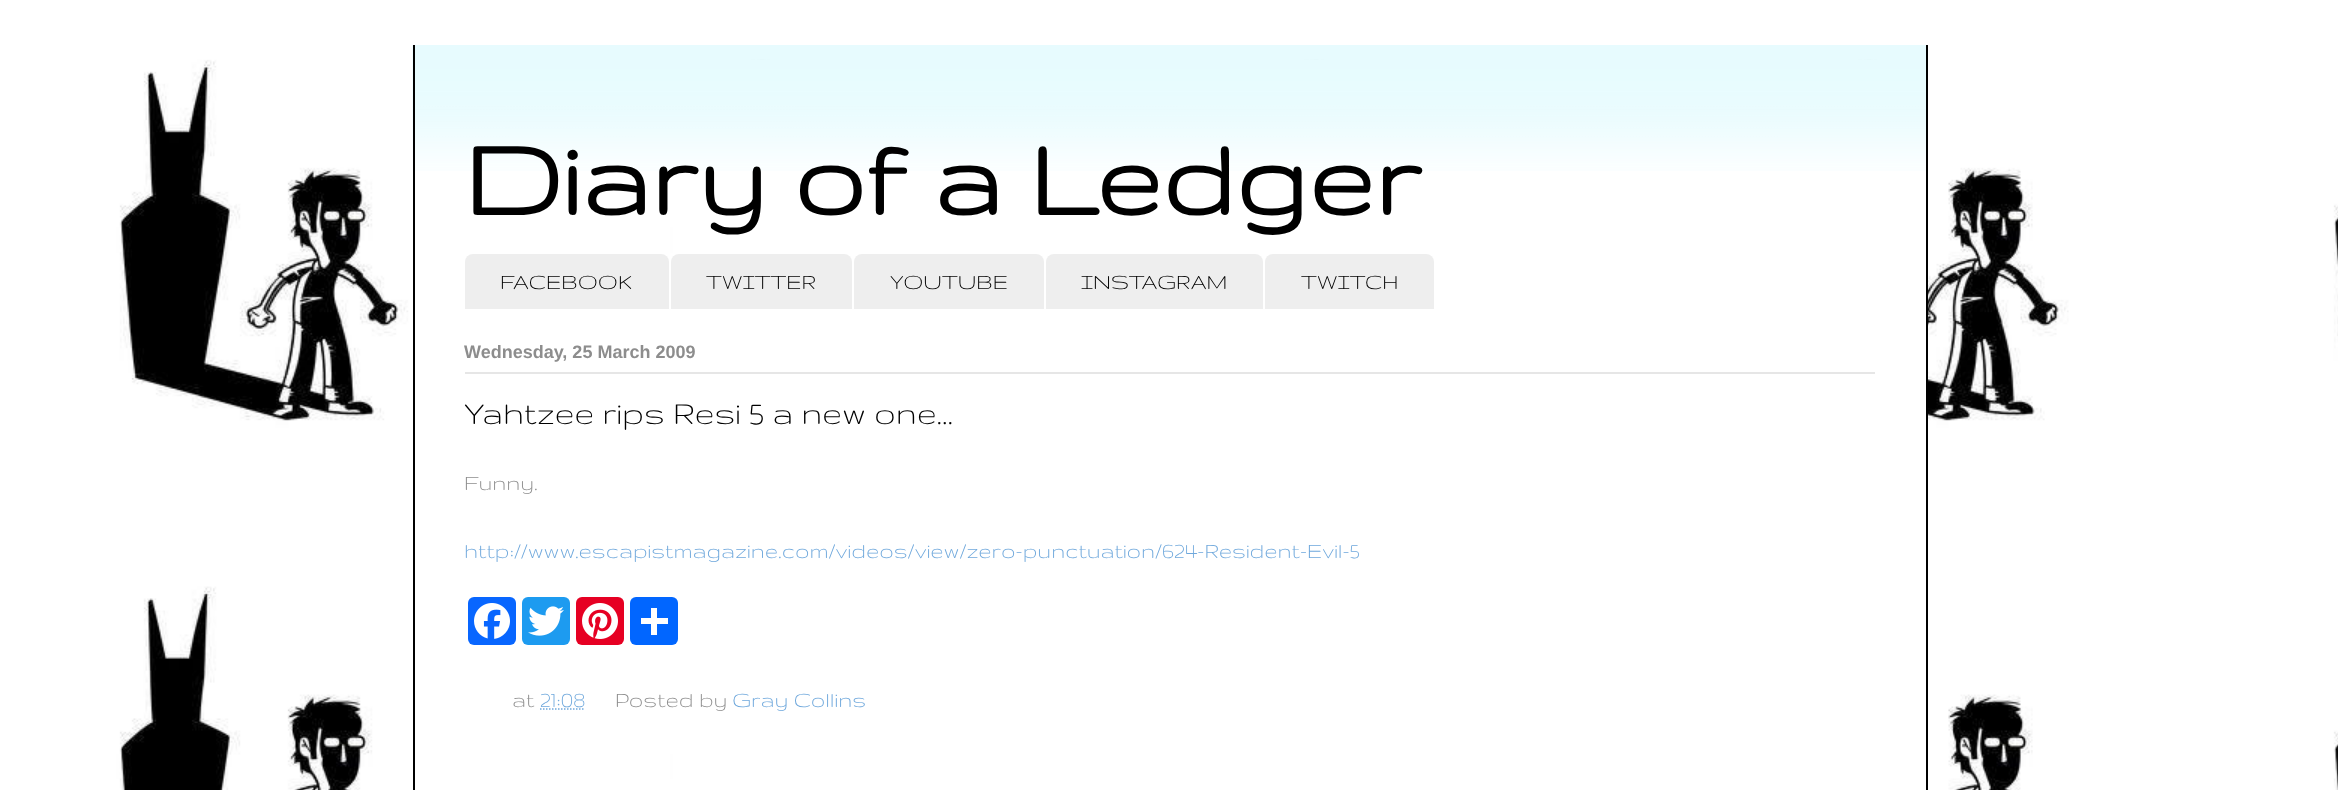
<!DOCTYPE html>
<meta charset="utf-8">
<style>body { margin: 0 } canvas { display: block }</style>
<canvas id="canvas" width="2338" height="790"></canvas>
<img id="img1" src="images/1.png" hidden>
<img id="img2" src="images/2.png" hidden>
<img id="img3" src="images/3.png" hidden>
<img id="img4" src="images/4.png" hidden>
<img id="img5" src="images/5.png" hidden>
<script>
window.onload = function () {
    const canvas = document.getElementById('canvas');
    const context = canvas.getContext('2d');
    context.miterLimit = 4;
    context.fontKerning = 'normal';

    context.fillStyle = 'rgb(255, 255, 255)';
    context.fillRect(0, 0, 2338, 790);
    context.drawImage(document.getElementById('img1'), 0, 0, 2338, 790);
    context.fillRect(673, 60, 1253, 730);
    context.drawImage(document.getElementById('img2'), 412, 45, 1514, 126);
    context.fillStyle = 'rgb(0, 0, 0)';
    context.fillRect(1926, 45, 2, 745);
    context.fillRect(413, 45, 2, 745);
    context.fillStyle = 'rgb(238, 238, 238)';
    context.beginPath();
    context.roundRect(465, 254, 204, 55, [8, 8, 0, 0]);
    context.fill();
    context.beginPath();
    context.roundRect(671, 254, 181, 55, [8, 8, 0, 0]);
    context.fill();
    context.beginPath();
    context.roundRect(854, 254, 190, 55, [8, 8, 0, 0]);
    context.fill();
    context.beginPath();
    context.roundRect(1046, 254, 217, 55, [8, 8, 0, 0]);
    context.fill();
    context.beginPath();
    context.roundRect(1265, 254, 169, 55, [8, 8, 0, 0]);
    context.fill();
    context.fillStyle = 'rgb(230, 230, 230)';
    context.fillRect(465, 372, 1410, 2);
    context.fillStyle = 'rgb(8, 102, 255)';
    context.beginPath();
    context.roundRect(468, 597, 48, 48, 6);
    context.fill();
    context.drawImage(document.getElementById('img3'), 474, 603, 36, 36);
    context.fillStyle = 'rgb(29, 155, 240)';
    context.beginPath();
    context.roundRect(522, 597, 48, 48, 6);
    context.fill();
    context.drawImage(document.getElementById('img4'), 528, 606, 36, 30);
    context.fillStyle = 'rgb(230, 0, 35)';
    context.beginPath();
    context.roundRect(576, 597, 48, 48, 6);
    context.fill();
    context.drawImage(document.getElementById('img5'), 582, 603, 36, 36);
    context.fillStyle = 'rgb(1, 102, 255)';
    context.beginPath();
    context.roundRect(630, 597, 48, 48, 6);
    context.fill();
    context.fillStyle = 'rgb(255, 255, 255)';
    context.fillRect(651, 608, 6, 27);
    context.fillRect(641, 618, 27, 6);
    context.beginPath();
    context.moveTo(540, 709);
    context.lineTo(585, 709);
    context.strokeStyle = 'rgb(111, 168, 220)';
    context.lineWidth = 1.5;
    context.setLineDash([1.5, 1.5]);
    context.stroke();
    context.font = 'bold 120px Gruppo';
    context.fillStyle = 'rgb(0, 0, 0)';
    context.fillText('Diary of a Ledger', 464, 215);
    context.font = '24px Gruppo';
    context.fillText('FACEBOOK', 500, 289);
    context.fillText('TWITTER', 706, 289);
    context.fillText('YOUTUBE', 890, 289);
    context.fillText('INSTAGRAM', 1081, 289);
    context.fillText('TWITCH', 1301, 289);
    context.font = 'bold 18px Liberation Sans';
    context.fillStyle = 'rgb(141, 141, 141)';
    context.fillText('Wednesday, 25 March 2009', 464, 358);
    context.font = '36px Gruppo';
    context.fillStyle = 'rgb(0, 0, 0)';
    context.fillText('Yahtzee rips Resi 5 a new one...', 464, 424);
    context.font = '24px Gruppo';
    context.fillStyle = 'rgb(141, 141, 141)';
    context.fillText('Funny.', 464, 490);
    context.fillStyle = 'rgb(111, 168, 220)';
    context.fillText('http://www.escapistmagazine.com/videos/view/zero-punctuation/624-Resident-Evil-5', 464, 558);
    context.fillStyle = 'rgb(141, 141, 141)';
    context.fillText('at', 512, 707);
    context.fillStyle = 'rgb(111, 168, 220)';
    context.fillText('21:08', 540, 707);
    context.fillStyle = 'rgb(141, 141, 141)';
    context.fillText('Posted by', 615, 707);
    context.fillStyle = 'rgb(111, 168, 220)';
    context.fillText('Gray Collins', 732, 707);
};
</script>
